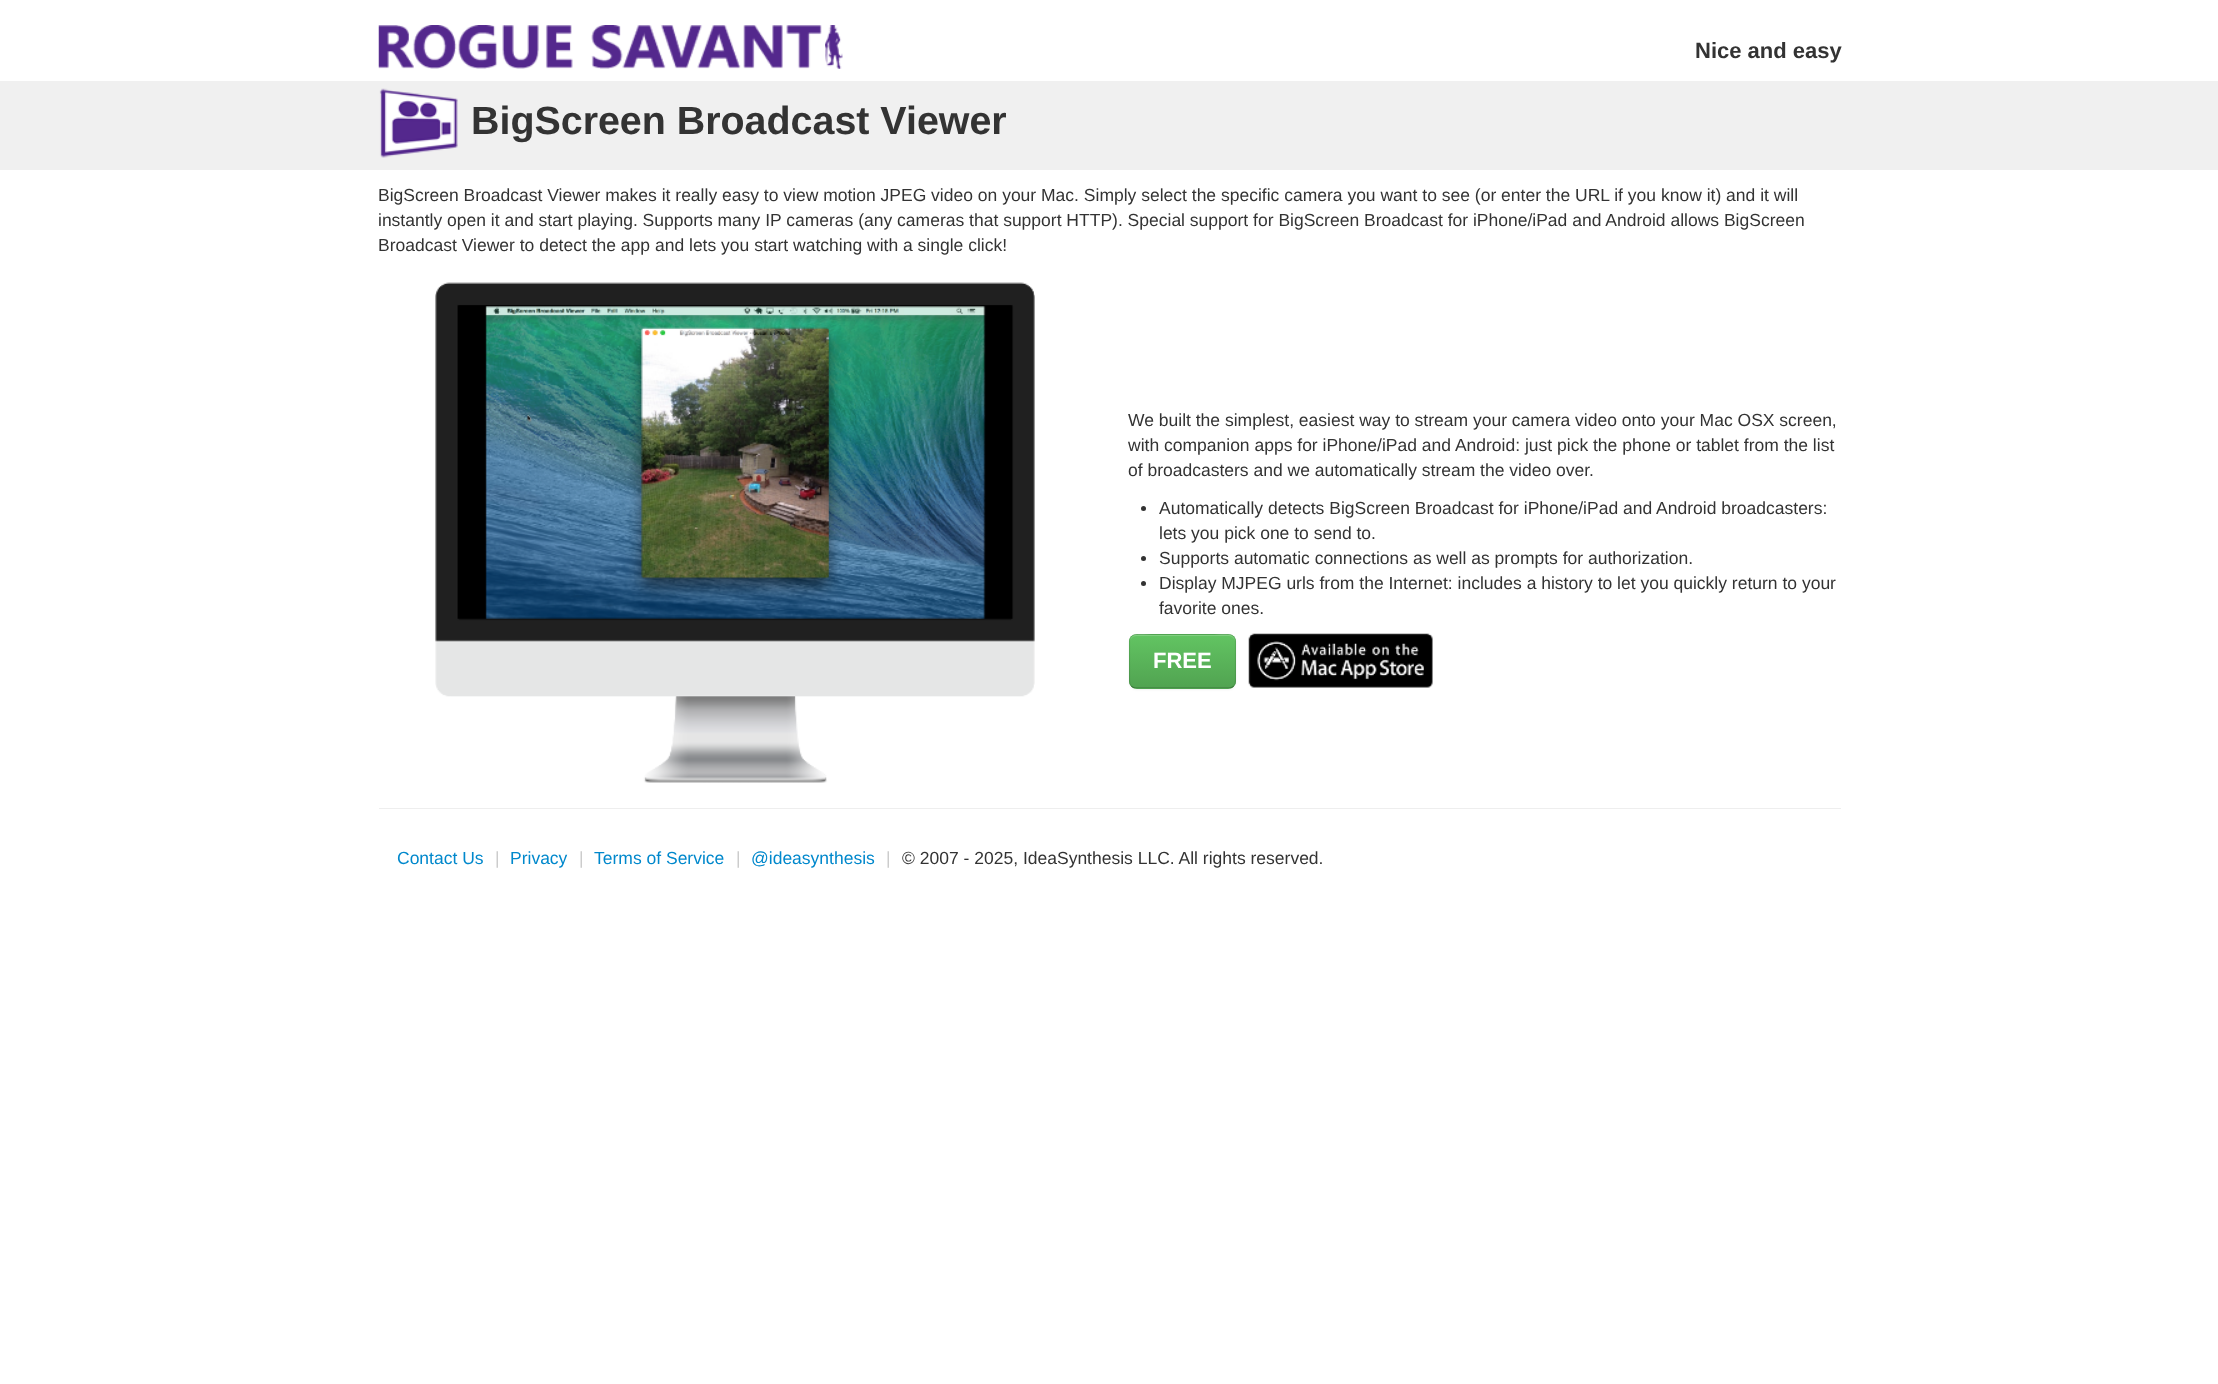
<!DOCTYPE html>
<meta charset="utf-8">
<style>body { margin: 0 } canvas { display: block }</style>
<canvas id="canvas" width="2218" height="1384"></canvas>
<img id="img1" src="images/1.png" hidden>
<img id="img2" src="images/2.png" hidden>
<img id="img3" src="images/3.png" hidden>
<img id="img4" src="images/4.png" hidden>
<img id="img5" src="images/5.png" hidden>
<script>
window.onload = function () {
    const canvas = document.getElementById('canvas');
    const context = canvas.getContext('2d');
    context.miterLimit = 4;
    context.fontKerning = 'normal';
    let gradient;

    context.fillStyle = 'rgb(255, 255, 255)';
    context.fillRect(0, 0, 2218, 1384);
    context.drawImage(document.getElementById('img1'), 378, 25, 444, 44);
    context.drawImage(document.getElementById('img2'), 825, 25, 18, 44);
    context.fillStyle = 'rgb(240, 240, 240)';
    context.fillRect(0, 81, 2218, 89);
    context.drawImage(document.getElementById('img3'), 379, 88, 79, 70);
    context.drawImage(document.getElementById('img4'), 435, 282, 600, 501);
    context.fillStyle = 'rgb(51, 51, 51)';
    context.beginPath();
    context.arc(1143.5, 508.5, 2.5, 0, 2 * Math.PI);
    context.fill();
    context.beginPath();
    context.arc(1143.5, 558.5, 2.5, 0, 2 * Math.PI);
    context.fill();
    context.beginPath();
    context.arc(1143.5, 583.5, 2.5, 0, 2 * Math.PI);
    context.fill();
    context.fillStyle = 'rgba(0, 0, 0, 0.05)';
    context.filter = 'blur(1px)';
    context.beginPath();
    context.roundRect(1129, 635, 107, 55, 8);
    context.fill();
    context.filter = 'none';
    context.fillStyle = 'rgb(91, 183, 91)';
    context.beginPath();
    context.roundRect(1129, 634, 107, 55, 8);
    context.fill();
    context.save();
    context.beginPath();
    context.roundRect(1129, 634, 107, 55, 8);
    context.clip();
    gradient = context.createLinearGradient(1183, 635, 1183, 688);
    gradient.addColorStop(0, 'rgb(98, 196, 98)');
    gradient.addColorStop(1, 'rgb(81, 163, 81)');
    context.fillStyle = gradient;
    context.fillRect(1129, 635, 107, 53);
    context.restore();
    context.fillStyle = 'rgba(255, 255, 255, 0.2)';
    context.beginPath();
    context.moveTo(1136, 636);
    context.lineTo(1229, 636);
    context.bezierCurveTo(1232, 636, 1235, 639, 1235, 642);
    context.bezierCurveTo(1235, 631, 1220, 635, 1214, 635);
    context.lineTo(1152, 635);
    context.bezierCurveTo(1145, 635, 1130, 631, 1130, 642);
    context.bezierCurveTo(1130, 639, 1133, 636, 1136, 636);
    context.closePath();
    context.fill();
    context.beginPath();
    context.moveTo(1233.5, 686);
    context.bezierCurveTo(1232.5, 687.5, 1230.5, 688, 1229, 688);
    context.lineTo(1136, 688);
    context.bezierCurveTo(1134.5, 688, 1132.5, 687.5, 1131.5, 686);
    context.strokeStyle = 'rgba(0, 0, 0, 0.25)';
    context.lineWidth = 1.2;
    context.stroke();
    context.beginPath();
    context.moveTo(1131.5, 686);
    context.bezierCurveTo(1130, 685, 1129.5, 683, 1129.5, 681);
    context.lineTo(1129.5, 641);
    context.bezierCurveTo(1129.5, 639.5, 1130, 637.5, 1131.5, 636.5);
    context.bezierCurveTo(1132.5, 635, 1134.5, 634.5, 1136, 634.5);
    context.lineTo(1229, 634.5);
    context.bezierCurveTo(1230.5, 634.5, 1232.5, 635, 1233.5, 636.5);
    context.bezierCurveTo(1235, 637.5, 1235.5, 639.5, 1235.5, 641);
    context.lineTo(1235.5, 681);
    context.bezierCurveTo(1235.5, 683, 1235, 685, 1233.5, 686);
    context.strokeStyle = 'rgba(0, 0, 0, 0.1)';
    context.stroke();
    context.drawImage(document.getElementById('img5'), 1248, 633, 185, 55);
    context.fillStyle = 'rgb(238, 238, 238)';
    context.fillRect(379, 808, 1462, 1);
    context.font = 'bold 22px Liberation Sans';
    context.fillStyle = 'rgb(51, 51, 51)';
    context.fillText('Nice and easy', 1695, 58);
    context.font = 'bold 39.4px Liberation Sans';
    context.fillText('BigScreen Broadcast Viewer', 471, 134);
    context.font = '17.5px Liberation Sans';
    context.fillText('BigScreen Broadcast Viewer makes it really easy to view motion JPEG video on your Mac. Simply select the specific camera you want to see (or enter the URL if you know it) and it will', 378, 201);
    context.fillText('instantly open it and start playing. Supports many IP cameras (any cameras that support HTTP). Special support for BigScreen Broadcast for iPhone/iPad and Android allows BigScreen', 378, 226);
    context.fillText('Broadcast Viewer to detect the app and lets you start watching with a single click!', 378, 251);
    context.fillText('We built the simplest, easiest way to stream your camera video onto your Mac OSX screen,', 1128, 426);
    context.fillText('with companion apps for iPhone/iPad and Android: just pick the phone or tablet from the list', 1128, 451);
    context.fillText('of broadcasters and we automatically stream the video over.', 1128, 476);
    context.fillText('Automatically detects BigScreen Broadcast for iPhone/iPad and Android broadcasters:', 1159, 514);
    context.fillText('lets you pick one to send to.', 1159, 539);
    context.fillText('Supports automatic connections as well as prompts for authorization.', 1159, 564);
    context.fillText('Display MJPEG urls from the Internet: includes a history to let you quickly return to your', 1159, 589);
    context.fillText('favorite ones.', 1159, 614);
    context.font = 'bold 22px Liberation Sans';
    context.fillStyle = 'rgb(255, 255, 255)';
    context.fillText('FREE', 1153, 668);
    context.font = '17.5px Liberation Sans';
    context.fillStyle = 'rgb(0, 136, 204)';
    context.fillText('Contact Us', 397, 864);
    context.fillStyle = 'rgb(204, 204, 204)';
    context.fillText('|', 495, 864);
    context.fillStyle = 'rgb(0, 136, 204)';
    context.fillText('Privacy', 510, 864);
    context.fillStyle = 'rgb(204, 204, 204)';
    context.fillText('|', 579, 864);
    context.fillStyle = 'rgb(0, 136, 204)';
    context.fillText('Terms of Service', 594, 864);
    context.fillStyle = 'rgb(204, 204, 204)';
    context.fillText('|', 736, 864);
    context.fillStyle = 'rgb(0, 136, 204)';
    context.fillText('@ideasynthesis', 751, 864);
    context.fillStyle = 'rgb(204, 204, 204)';
    context.fillText('|', 886, 864);
    context.fillStyle = 'rgb(51, 51, 51)';
    context.fillText('© 2007 - 2025, IdeaSynthesis LLC. All rights reserved.', 902, 864);
};
</script>
